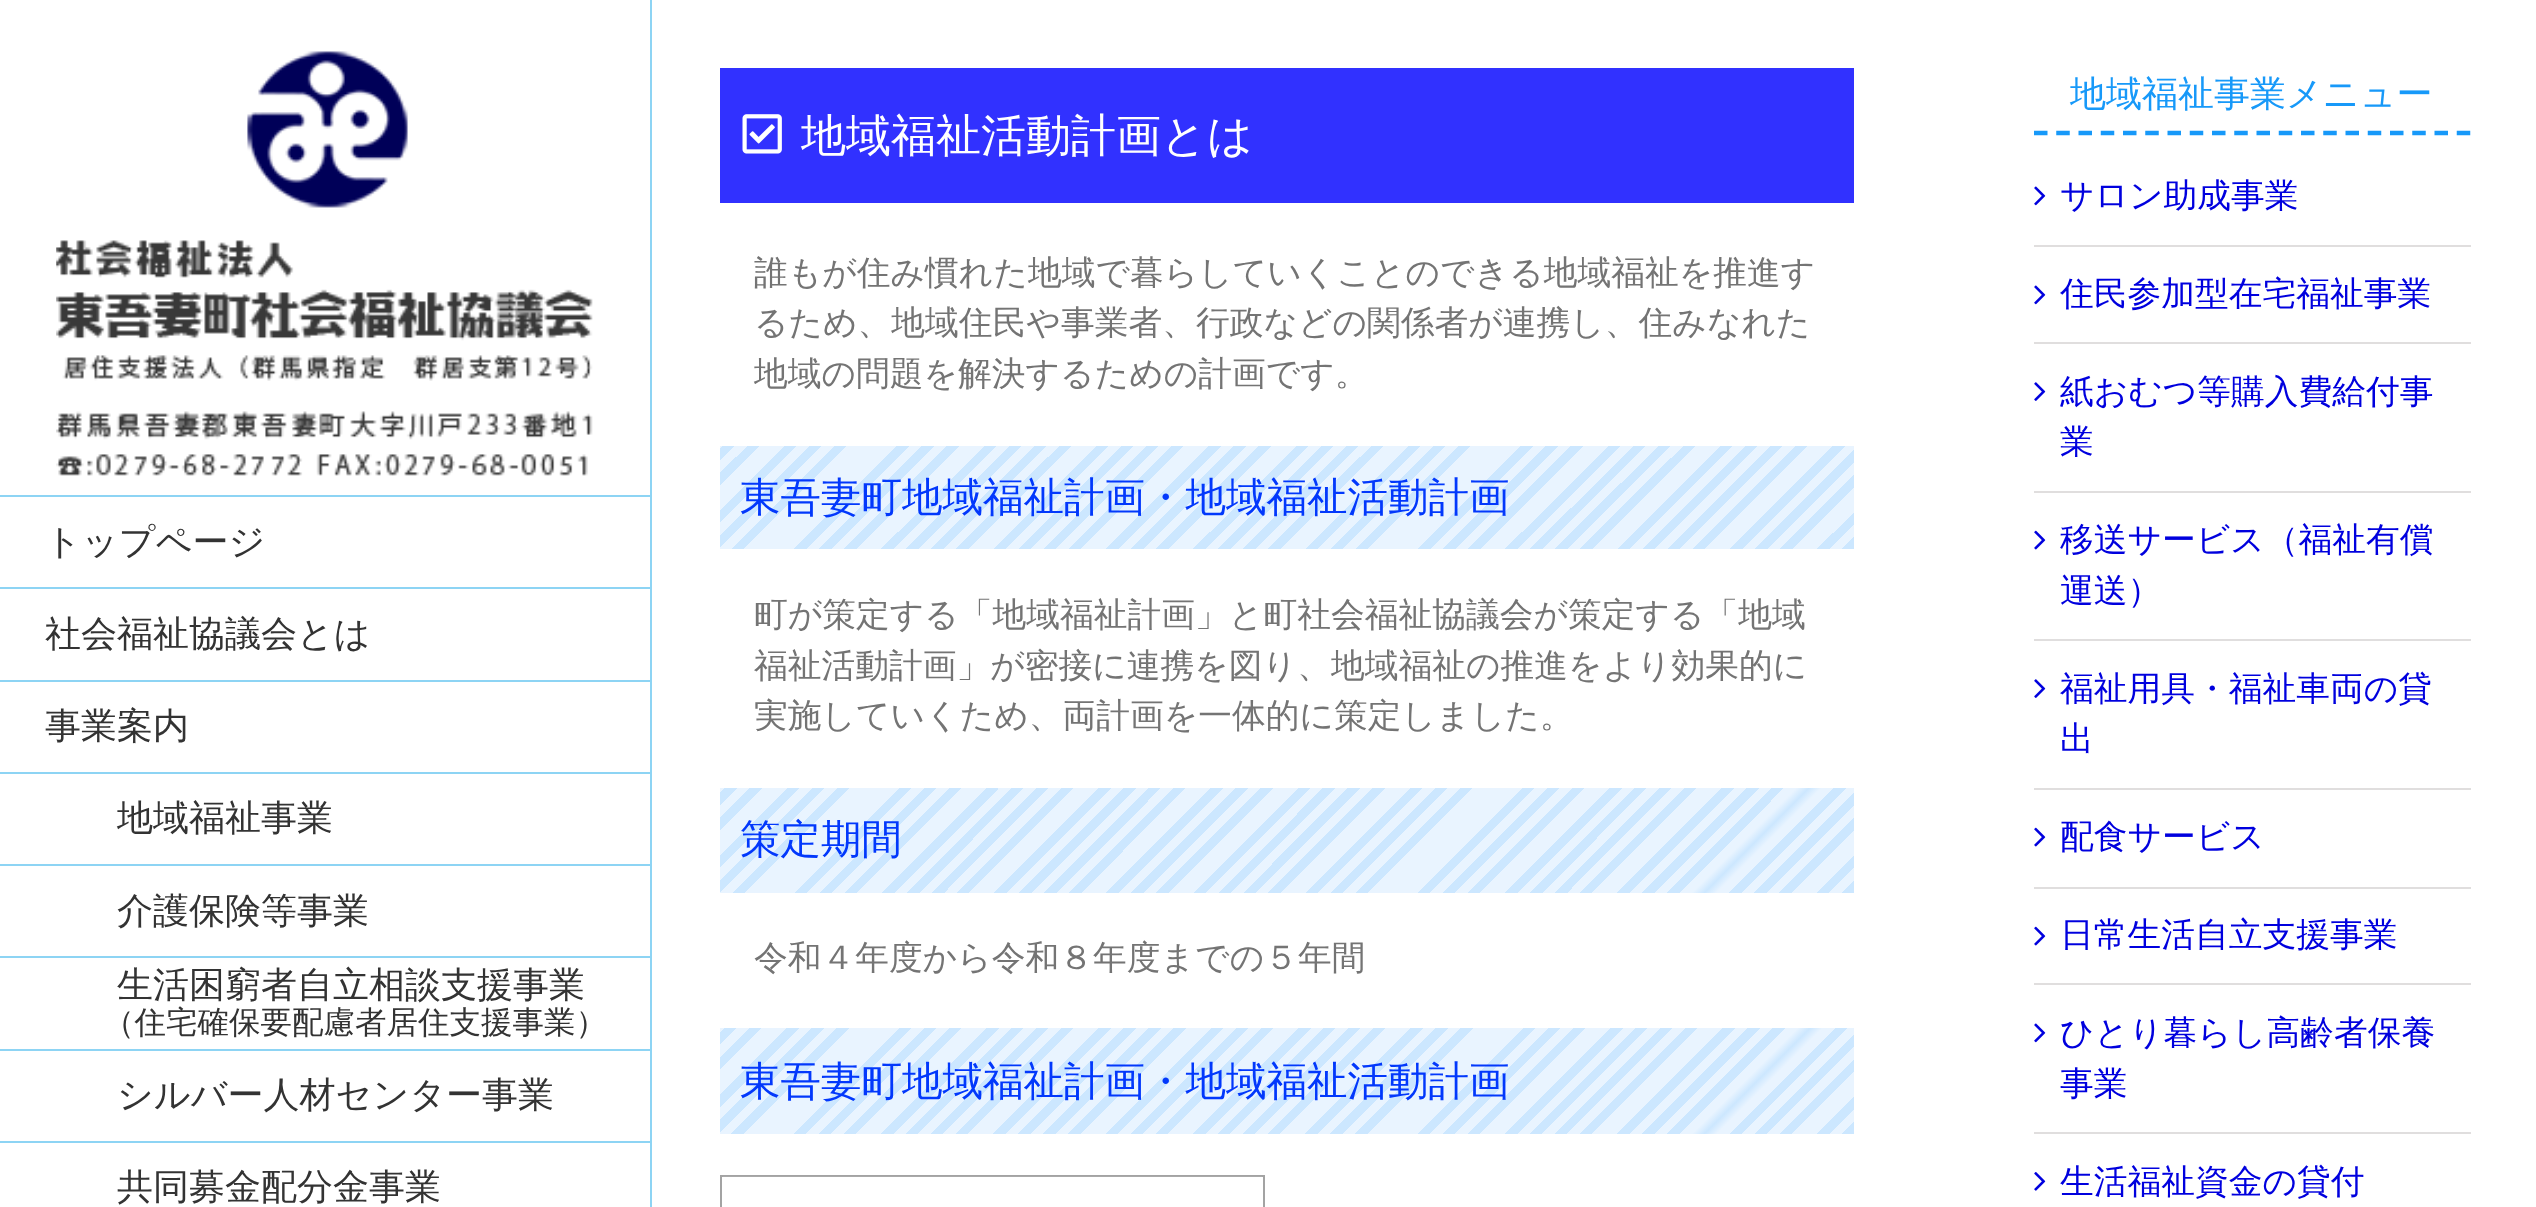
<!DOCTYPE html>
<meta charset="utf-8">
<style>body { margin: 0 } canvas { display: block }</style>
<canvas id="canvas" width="2536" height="1207"></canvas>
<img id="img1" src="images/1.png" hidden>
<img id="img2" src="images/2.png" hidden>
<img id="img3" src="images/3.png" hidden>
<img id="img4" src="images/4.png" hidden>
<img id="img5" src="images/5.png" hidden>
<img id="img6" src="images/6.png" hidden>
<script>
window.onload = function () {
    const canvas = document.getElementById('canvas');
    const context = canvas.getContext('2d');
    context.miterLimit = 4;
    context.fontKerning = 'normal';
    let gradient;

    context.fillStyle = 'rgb(255, 255, 255)';
    context.fillRect(0, 0, 2536, 1207);
    context.drawImage(document.getElementById('img1'), 56, 51, 537, 425);
    context.fillStyle = 'rgb(141, 212, 244)';
    context.fillRect(0, 495, 650, 2);
    context.fillRect(0, 587, 650, 2);
    context.fillRect(0, 680, 650, 2);
    context.fillRect(0, 772, 650, 2);
    context.fillRect(0, 864, 650, 2);
    context.fillRect(0, 956, 650, 2);
    context.fillRect(0, 1049, 650, 2);
    context.fillRect(0, 1141, 650, 2);
    context.fillRect(650, 0, 2, 1207);
    context.fillStyle = 'rgb(49, 49, 255)';
    context.fillRect(720, 68, 1134, 135);
    context.drawImage(document.getElementById('img2'), 742, 114, 40, 40);
    gradient = context.createLinearGradient(1596, 807, 973, 183);
    gradient.addColorStop(0, 'rgb(204, 231, 255)');
    gradient.addColorStop(0.01, 'rgb(204, 231, 255)');
    gradient.addColorStop(0.01, 'rgb(233, 244, 255)');
    gradient.addColorStop(0.02, 'rgb(233, 244, 255)');
    gradient.addColorStop(0.02, 'rgb(204, 231, 255)');
    gradient.addColorStop(0.03, 'rgb(204, 231, 255)');
    gradient.addColorStop(0.03, 'rgb(233, 244, 255)');
    gradient.addColorStop(0.04, 'rgb(233, 244, 255)');
    gradient.addColorStop(0.04, 'rgb(204, 231, 255)');
    gradient.addColorStop(0.04, 'rgb(204, 231, 255)');
    gradient.addColorStop(0.04, 'rgb(233, 244, 255)');
    gradient.addColorStop(0.05, 'rgb(233, 244, 255)');
    gradient.addColorStop(0.05, 'rgb(204, 231, 255)');
    gradient.addColorStop(0.06, 'rgb(204, 231, 255)');
    gradient.addColorStop(0.06, 'rgb(233, 244, 255)');
    gradient.addColorStop(0.07, 'rgb(233, 244, 255)');
    gradient.addColorStop(0.07, 'rgb(204, 231, 255)');
    gradient.addColorStop(0.08, 'rgb(204, 231, 255)');
    gradient.addColorStop(0.08, 'rgb(233, 244, 255)');
    gradient.addColorStop(0.09, 'rgb(233, 244, 255)');
    gradient.addColorStop(0.09, 'rgb(204, 231, 255)');
    gradient.addColorStop(0.1, 'rgb(204, 231, 255)');
    gradient.addColorStop(0.1, 'rgb(233, 244, 255)');
    gradient.addColorStop(0.11, 'rgb(233, 244, 255)');
    gradient.addColorStop(0.11, 'rgb(204, 231, 255)');
    gradient.addColorStop(0.11, 'rgb(204, 231, 255)');
    gradient.addColorStop(0.11, 'rgb(233, 244, 255)');
    gradient.addColorStop(0.12, 'rgb(233, 244, 255)');
    gradient.addColorStop(0.12, 'rgb(204, 231, 255)');
    gradient.addColorStop(0.13, 'rgb(204, 231, 255)');
    gradient.addColorStop(0.13, 'rgb(233, 244, 255)');
    gradient.addColorStop(0.14, 'rgb(233, 244, 255)');
    gradient.addColorStop(0.14, 'rgb(204, 231, 255)');
    gradient.addColorStop(0.15, 'rgb(204, 231, 255)');
    gradient.addColorStop(0.15, 'rgb(233, 244, 255)');
    gradient.addColorStop(0.16, 'rgb(233, 244, 255)');
    gradient.addColorStop(0.16, 'rgb(204, 231, 255)');
    gradient.addColorStop(0.17, 'rgb(204, 231, 255)');
    gradient.addColorStop(0.17, 'rgb(233, 244, 255)');
    gradient.addColorStop(0.18, 'rgb(233, 244, 255)');
    gradient.addColorStop(0.18, 'rgb(204, 231, 255)');
    gradient.addColorStop(0.19, 'rgb(204, 231, 255)');
    gradient.addColorStop(0.19, 'rgb(233, 244, 255)');
    gradient.addColorStop(0.2, 'rgb(233, 244, 255)');
    gradient.addColorStop(0.2, 'rgb(204, 231, 255)');
    gradient.addColorStop(0.2, 'rgb(204, 231, 255)');
    gradient.addColorStop(0.2, 'rgb(233, 244, 255)');
    gradient.addColorStop(0.21, 'rgb(233, 244, 255)');
    gradient.addColorStop(0.21, 'rgb(204, 231, 255)');
    gradient.addColorStop(0.22, 'rgb(204, 231, 255)');
    gradient.addColorStop(0.22, 'rgb(233, 244, 255)');
    gradient.addColorStop(0.23, 'rgb(233, 244, 255)');
    gradient.addColorStop(0.23, 'rgb(204, 231, 255)');
    gradient.addColorStop(0.24, 'rgb(204, 231, 255)');
    gradient.addColorStop(0.24, 'rgb(233, 244, 255)');
    gradient.addColorStop(0.25, 'rgb(233, 244, 255)');
    gradient.addColorStop(0.25, 'rgb(204, 231, 255)');
    gradient.addColorStop(0.26, 'rgb(204, 231, 255)');
    gradient.addColorStop(0.26, 'rgb(233, 244, 255)');
    gradient.addColorStop(0.27, 'rgb(233, 244, 255)');
    gradient.addColorStop(0.27, 'rgb(204, 231, 255)');
    gradient.addColorStop(0.28, 'rgb(204, 231, 255)');
    gradient.addColorStop(0.28, 'rgb(233, 244, 255)');
    gradient.addColorStop(0.29, 'rgb(233, 244, 255)');
    gradient.addColorStop(0.29, 'rgb(204, 231, 255)');
    gradient.addColorStop(0.29, 'rgb(204, 231, 255)');
    gradient.addColorStop(0.29, 'rgb(233, 244, 255)');
    gradient.addColorStop(0.3, 'rgb(233, 244, 255)');
    gradient.addColorStop(0.3, 'rgb(204, 231, 255)');
    gradient.addColorStop(0.31, 'rgb(204, 231, 255)');
    gradient.addColorStop(0.31, 'rgb(233, 244, 255)');
    gradient.addColorStop(0.32, 'rgb(233, 244, 255)');
    gradient.addColorStop(0.32, 'rgb(204, 231, 255)');
    gradient.addColorStop(0.33, 'rgb(204, 231, 255)');
    gradient.addColorStop(0.33, 'rgb(233, 244, 255)');
    gradient.addColorStop(0.34, 'rgb(233, 244, 255)');
    gradient.addColorStop(0.34, 'rgb(204, 231, 255)');
    gradient.addColorStop(0.35, 'rgb(204, 231, 255)');
    gradient.addColorStop(0.35, 'rgb(233, 244, 255)');
    gradient.addColorStop(0.36, 'rgb(233, 244, 255)');
    gradient.addColorStop(0.36, 'rgb(204, 231, 255)');
    gradient.addColorStop(0.36, 'rgb(204, 231, 255)');
    gradient.addColorStop(0.36, 'rgb(233, 244, 255)');
    gradient.addColorStop(0.38, 'rgb(233, 244, 255)');
    gradient.addColorStop(0.38, 'rgb(204, 231, 255)');
    gradient.addColorStop(0.38, 'rgb(204, 231, 255)');
    gradient.addColorStop(0.38, 'rgb(233, 244, 255)');
    gradient.addColorStop(0.39, 'rgb(233, 244, 255)');
    gradient.addColorStop(0.39, 'rgb(204, 231, 255)');
    gradient.addColorStop(0.4, 'rgb(204, 231, 255)');
    gradient.addColorStop(0.4, 'rgb(233, 244, 255)');
    gradient.addColorStop(0.41, 'rgb(233, 244, 255)');
    gradient.addColorStop(0.41, 'rgb(204, 231, 255)');
    gradient.addColorStop(0.42, 'rgb(204, 231, 255)');
    gradient.addColorStop(0.42, 'rgb(233, 244, 255)');
    gradient.addColorStop(0.43, 'rgb(233, 244, 255)');
    gradient.addColorStop(0.43, 'rgb(204, 231, 255)');
    gradient.addColorStop(0.44, 'rgb(204, 231, 255)');
    gradient.addColorStop(0.44, 'rgb(233, 244, 255)');
    gradient.addColorStop(0.45, 'rgb(233, 244, 255)');
    gradient.addColorStop(0.45, 'rgb(204, 231, 255)');
    gradient.addColorStop(0.45, 'rgb(204, 231, 255)');
    gradient.addColorStop(0.45, 'rgb(233, 244, 255)');
    gradient.addColorStop(0.46, 'rgb(233, 244, 255)');
    gradient.addColorStop(0.46, 'rgb(204, 231, 255)');
    gradient.addColorStop(0.47, 'rgb(204, 231, 255)');
    gradient.addColorStop(0.47, 'rgb(233, 244, 255)');
    gradient.addColorStop(0.48, 'rgb(233, 244, 255)');
    gradient.addColorStop(0.48, 'rgb(204, 231, 255)');
    gradient.addColorStop(0.49, 'rgb(204, 231, 255)');
    gradient.addColorStop(0.49, 'rgb(233, 244, 255)');
    gradient.addColorStop(0.5, 'rgb(233, 244, 255)');
    gradient.addColorStop(0.5, 'rgb(204, 231, 255)');
    gradient.addColorStop(0.51, 'rgb(204, 231, 255)');
    gradient.addColorStop(0.51, 'rgb(233, 244, 255)');
    gradient.addColorStop(0.52, 'rgb(233, 244, 255)');
    gradient.addColorStop(0.52, 'rgb(204, 231, 255)');
    gradient.addColorStop(0.53, 'rgb(204, 231, 255)');
    gradient.addColorStop(0.53, 'rgb(233, 244, 255)');
    gradient.addColorStop(0.54, 'rgb(233, 244, 255)');
    gradient.addColorStop(0.54, 'rgb(204, 231, 255)');
    gradient.addColorStop(0.54, 'rgb(204, 231, 255)');
    gradient.addColorStop(0.54, 'rgb(233, 244, 255)');
    gradient.addColorStop(0.55, 'rgb(233, 244, 255)');
    gradient.addColorStop(0.55, 'rgb(204, 231, 255)');
    gradient.addColorStop(0.56, 'rgb(204, 231, 255)');
    gradient.addColorStop(0.56, 'rgb(233, 244, 255)');
    gradient.addColorStop(0.57, 'rgb(233, 244, 255)');
    gradient.addColorStop(0.57, 'rgb(204, 231, 255)');
    gradient.addColorStop(0.58, 'rgb(204, 231, 255)');
    gradient.addColorStop(0.58, 'rgb(233, 244, 255)');
    gradient.addColorStop(0.59, 'rgb(233, 244, 255)');
    gradient.addColorStop(0.59, 'rgb(204, 231, 255)');
    gradient.addColorStop(0.6, 'rgb(204, 231, 255)');
    gradient.addColorStop(0.6, 'rgb(233, 244, 255)');
    gradient.addColorStop(0.61, 'rgb(233, 244, 255)');
    gradient.addColorStop(0.61, 'rgb(204, 231, 255)');
    gradient.addColorStop(0.61, 'rgb(204, 231, 255)');
    gradient.addColorStop(0.61, 'rgb(233, 244, 255)');
    gradient.addColorStop(0.62, 'rgb(233, 244, 255)');
    gradient.addColorStop(0.62, 'rgb(204, 231, 255)');
    gradient.addColorStop(0.63, 'rgb(204, 231, 255)');
    gradient.addColorStop(0.63, 'rgb(233, 244, 255)');
    gradient.addColorStop(0.64, 'rgb(233, 244, 255)');
    gradient.addColorStop(0.64, 'rgb(204, 231, 255)');
    gradient.addColorStop(0.65, 'rgb(204, 231, 255)');
    gradient.addColorStop(0.65, 'rgb(233, 244, 255)');
    gradient.addColorStop(0.66, 'rgb(233, 244, 255)');
    gradient.addColorStop(0.66, 'rgb(204, 231, 255)');
    gradient.addColorStop(0.67, 'rgb(204, 231, 255)');
    gradient.addColorStop(0.67, 'rgb(233, 244, 255)');
    gradient.addColorStop(0.68, 'rgb(233, 244, 255)');
    gradient.addColorStop(0.68, 'rgb(204, 231, 255)');
    gradient.addColorStop(0.69, 'rgb(204, 231, 255)');
    gradient.addColorStop(0.69, 'rgb(233, 244, 255)');
    gradient.addColorStop(0.7, 'rgb(233, 244, 255)');
    gradient.addColorStop(0.7, 'rgb(204, 231, 255)');
    gradient.addColorStop(0.7, 'rgb(204, 231, 255)');
    gradient.addColorStop(0.7, 'rgb(233, 244, 255)');
    gradient.addColorStop(0.71, 'rgb(233, 244, 255)');
    gradient.addColorStop(0.71, 'rgb(204, 231, 255)');
    gradient.addColorStop(0.72, 'rgb(204, 231, 255)');
    gradient.addColorStop(0.72, 'rgb(233, 244, 255)');
    gradient.addColorStop(0.73, 'rgb(233, 244, 255)');
    gradient.addColorStop(0.73, 'rgb(204, 231, 255)');
    gradient.addColorStop(0.74, 'rgb(204, 231, 255)');
    gradient.addColorStop(0.74, 'rgb(233, 244, 255)');
    gradient.addColorStop(0.75, 'rgb(233, 244, 255)');
    gradient.addColorStop(0.75, 'rgb(204, 231, 255)');
    gradient.addColorStop(0.76, 'rgb(204, 231, 255)');
    gradient.addColorStop(0.76, 'rgb(233, 244, 255)');
    gradient.addColorStop(0.77, 'rgb(233, 244, 255)');
    gradient.addColorStop(0.77, 'rgb(204, 231, 255)');
    gradient.addColorStop(0.78, 'rgb(204, 231, 255)');
    gradient.addColorStop(0.78, 'rgb(233, 244, 255)');
    gradient.addColorStop(0.79, 'rgb(233, 244, 255)');
    gradient.addColorStop(0.79, 'rgb(204, 231, 255)');
    gradient.addColorStop(0.79, 'rgb(204, 231, 255)');
    gradient.addColorStop(0.79, 'rgb(233, 244, 255)');
    gradient.addColorStop(0.8, 'rgb(233, 244, 255)');
    gradient.addColorStop(0.8, 'rgb(204, 231, 255)');
    gradient.addColorStop(0.81, 'rgb(204, 231, 255)');
    gradient.addColorStop(0.81, 'rgb(233, 244, 255)');
    gradient.addColorStop(0.82, 'rgb(233, 244, 255)');
    gradient.addColorStop(0.82, 'rgb(204, 231, 255)');
    gradient.addColorStop(0.83, 'rgb(204, 231, 255)');
    gradient.addColorStop(0.83, 'rgb(233, 244, 255)');
    gradient.addColorStop(0.84, 'rgb(233, 244, 255)');
    gradient.addColorStop(0.84, 'rgb(204, 231, 255)');
    gradient.addColorStop(0.85, 'rgb(204, 231, 255)');
    gradient.addColorStop(0.85, 'rgb(233, 244, 255)');
    gradient.addColorStop(0.86, 'rgb(233, 244, 255)');
    gradient.addColorStop(0.86, 'rgb(204, 231, 255)');
    gradient.addColorStop(0.86, 'rgb(204, 231, 255)');
    gradient.addColorStop(0.86, 'rgb(233, 244, 255)');
    gradient.addColorStop(0.88, 'rgb(233, 244, 255)');
    gradient.addColorStop(0.88, 'rgb(204, 231, 255)');
    gradient.addColorStop(0.88, 'rgb(204, 231, 255)');
    gradient.addColorStop(0.88, 'rgb(233, 244, 255)');
    gradient.addColorStop(0.89, 'rgb(233, 244, 255)');
    gradient.addColorStop(0.89, 'rgb(204, 231, 255)');
    gradient.addColorStop(0.9, 'rgb(204, 231, 255)');
    gradient.addColorStop(0.9, 'rgb(233, 244, 255)');
    gradient.addColorStop(0.91, 'rgb(233, 244, 255)');
    gradient.addColorStop(0.91, 'rgb(204, 231, 255)');
    gradient.addColorStop(0.92, 'rgb(204, 231, 255)');
    gradient.addColorStop(0.92, 'rgb(233, 244, 255)');
    gradient.addColorStop(0.93, 'rgb(233, 244, 255)');
    gradient.addColorStop(0.93, 'rgb(204, 231, 255)');
    gradient.addColorStop(0.94, 'rgb(204, 231, 255)');
    gradient.addColorStop(0.94, 'rgb(233, 244, 255)');
    gradient.addColorStop(0.95, 'rgb(233, 244, 255)');
    gradient.addColorStop(0.95, 'rgb(204, 231, 255)');
    gradient.addColorStop(0.95, 'rgb(204, 231, 255)');
    gradient.addColorStop(0.95, 'rgb(233, 244, 255)');
    gradient.addColorStop(0.96, 'rgb(233, 244, 255)');
    gradient.addColorStop(0.96, 'rgb(204, 231, 255)');
    gradient.addColorStop(0.97, 'rgb(204, 231, 255)');
    gradient.addColorStop(0.97, 'rgb(233, 244, 255)');
    gradient.addColorStop(0.98, 'rgb(233, 244, 255)');
    gradient.addColorStop(0.98, 'rgb(204, 231, 255)');
    gradient.addColorStop(0.99, 'rgb(204, 231, 255)');
    gradient.addColorStop(0.99, 'rgb(233, 244, 255)');
    gradient.addColorStop(1, 'rgb(233, 244, 255)');
    context.fillStyle = gradient;
    context.fillRect(720, 446, 1134, 103);
    gradient = context.createLinearGradient(1597, 1150, 973, 527);
    gradient.addColorStop(0, 'rgb(204, 231, 255)');
    gradient.addColorStop(0.01, 'rgb(204, 231, 255)');
    gradient.addColorStop(0.01, 'rgb(233, 244, 255)');
    gradient.addColorStop(0.02, 'rgb(233, 244, 255)');
    gradient.addColorStop(0.02, 'rgb(204, 231, 255)');
    gradient.addColorStop(0.03, 'rgb(204, 231, 255)');
    gradient.addColorStop(0.03, 'rgb(233, 244, 255)');
    gradient.addColorStop(0.04, 'rgb(233, 244, 255)');
    gradient.addColorStop(0.04, 'rgb(204, 231, 255)');
    gradient.addColorStop(0.04, 'rgb(204, 231, 255)');
    gradient.addColorStop(0.04, 'rgb(233, 244, 255)');
    gradient.addColorStop(0.05, 'rgb(233, 244, 255)');
    gradient.addColorStop(0.05, 'rgb(204, 231, 255)');
    gradient.addColorStop(0.06, 'rgb(204, 231, 255)');
    gradient.addColorStop(0.06, 'rgb(233, 244, 255)');
    gradient.addColorStop(0.07, 'rgb(233, 244, 255)');
    gradient.addColorStop(0.07, 'rgb(204, 231, 255)');
    gradient.addColorStop(0.08, 'rgb(204, 231, 255)');
    gradient.addColorStop(0.08, 'rgb(233, 244, 255)');
    gradient.addColorStop(0.09, 'rgb(233, 244, 255)');
    gradient.addColorStop(0.09, 'rgb(204, 231, 255)');
    gradient.addColorStop(0.1, 'rgb(204, 231, 255)');
    gradient.addColorStop(0.1, 'rgb(233, 244, 255)');
    gradient.addColorStop(0.11, 'rgb(233, 244, 255)');
    gradient.addColorStop(0.11, 'rgb(204, 231, 255)');
    gradient.addColorStop(0.11, 'rgb(204, 231, 255)');
    gradient.addColorStop(0.11, 'rgb(233, 244, 255)');
    gradient.addColorStop(0.13, 'rgb(233, 244, 255)');
    gradient.addColorStop(0.12, 'rgb(204, 231, 255)');
    gradient.addColorStop(0.13, 'rgb(204, 231, 255)');
    gradient.addColorStop(0.13, 'rgb(233, 244, 255)');
    gradient.addColorStop(0.14, 'rgb(233, 244, 255)');
    gradient.addColorStop(0.14, 'rgb(204, 231, 255)');
    gradient.addColorStop(0.15, 'rgb(204, 231, 255)');
    gradient.addColorStop(0.15, 'rgb(233, 244, 255)');
    gradient.addColorStop(0.16, 'rgb(233, 244, 255)');
    gradient.addColorStop(0.16, 'rgb(204, 231, 255)');
    gradient.addColorStop(0.17, 'rgb(204, 231, 255)');
    gradient.addColorStop(0.17, 'rgb(233, 244, 255)');
    gradient.addColorStop(0.18, 'rgb(233, 244, 255)');
    gradient.addColorStop(0.18, 'rgb(204, 231, 255)');
    gradient.addColorStop(0.19, 'rgb(204, 231, 255)');
    gradient.addColorStop(0.19, 'rgb(233, 244, 255)');
    gradient.addColorStop(0.2, 'rgb(233, 244, 255)');
    gradient.addColorStop(0.2, 'rgb(204, 231, 255)');
    gradient.addColorStop(0.2, 'rgb(204, 231, 255)');
    gradient.addColorStop(0.2, 'rgb(233, 244, 255)');
    gradient.addColorStop(0.21, 'rgb(233, 244, 255)');
    gradient.addColorStop(0.21, 'rgb(204, 231, 255)');
    gradient.addColorStop(0.22, 'rgb(204, 231, 255)');
    gradient.addColorStop(0.22, 'rgb(233, 244, 255)');
    gradient.addColorStop(0.23, 'rgb(233, 244, 255)');
    gradient.addColorStop(0.23, 'rgb(204, 231, 255)');
    gradient.addColorStop(0.24, 'rgb(204, 231, 255)');
    gradient.addColorStop(0.24, 'rgb(233, 244, 255)');
    gradient.addColorStop(0.25, 'rgb(233, 244, 255)');
    gradient.addColorStop(0.25, 'rgb(204, 231, 255)');
    gradient.addColorStop(0.26, 'rgb(204, 231, 255)');
    gradient.addColorStop(0.26, 'rgb(233, 244, 255)');
    gradient.addColorStop(0.27, 'rgb(233, 244, 255)');
    gradient.addColorStop(0.27, 'rgb(204, 231, 255)');
    gradient.addColorStop(0.28, 'rgb(204, 231, 255)');
    gradient.addColorStop(0.28, 'rgb(233, 244, 255)');
    gradient.addColorStop(0.29, 'rgb(233, 244, 255)');
    gradient.addColorStop(0.29, 'rgb(204, 231, 255)');
    gradient.addColorStop(0.29, 'rgb(204, 231, 255)');
    gradient.addColorStop(0.29, 'rgb(233, 244, 255)');
    gradient.addColorStop(0.3, 'rgb(233, 244, 255)');
    gradient.addColorStop(0.3, 'rgb(204, 231, 255)');
    gradient.addColorStop(0.31, 'rgb(204, 231, 255)');
    gradient.addColorStop(0.31, 'rgb(233, 244, 255)');
    gradient.addColorStop(0.32, 'rgb(233, 244, 255)');
    gradient.addColorStop(0.32, 'rgb(204, 231, 255)');
    gradient.addColorStop(0.33, 'rgb(204, 231, 255)');
    gradient.addColorStop(0.33, 'rgb(233, 244, 255)');
    gradient.addColorStop(0.34, 'rgb(233, 244, 255)');
    gradient.addColorStop(0.34, 'rgb(204, 231, 255)');
    gradient.addColorStop(0.35, 'rgb(204, 231, 255)');
    gradient.addColorStop(0.35, 'rgb(233, 244, 255)');
    gradient.addColorStop(0.36, 'rgb(233, 244, 255)');
    gradient.addColorStop(0.36, 'rgb(204, 231, 255)');
    gradient.addColorStop(0.36, 'rgb(204, 231, 255)');
    gradient.addColorStop(0.36, 'rgb(233, 244, 255)');
    gradient.addColorStop(0.38, 'rgb(233, 244, 255)');
    gradient.addColorStop(0.38, 'rgb(204, 231, 255)');
    gradient.addColorStop(0.38, 'rgb(204, 231, 255)');
    gradient.addColorStop(0.38, 'rgb(233, 244, 255)');
    gradient.addColorStop(0.39, 'rgb(233, 244, 255)');
    gradient.addColorStop(0.39, 'rgb(204, 231, 255)');
    gradient.addColorStop(0.4, 'rgb(204, 231, 255)');
    gradient.addColorStop(0.4, 'rgb(233, 244, 255)');
    gradient.addColorStop(0.41, 'rgb(233, 244, 255)');
    gradient.addColorStop(0.41, 'rgb(204, 231, 255)');
    gradient.addColorStop(0.42, 'rgb(204, 231, 255)');
    gradient.addColorStop(0.42, 'rgb(233, 244, 255)');
    gradient.addColorStop(0.43, 'rgb(233, 244, 255)');
    gradient.addColorStop(0.43, 'rgb(204, 231, 255)');
    gradient.addColorStop(0.44, 'rgb(204, 231, 255)');
    gradient.addColorStop(0.44, 'rgb(233, 244, 255)');
    gradient.addColorStop(0.45, 'rgb(233, 244, 255)');
    gradient.addColorStop(0.45, 'rgb(204, 231, 255)');
    gradient.addColorStop(0.45, 'rgb(204, 231, 255)');
    gradient.addColorStop(0.45, 'rgb(233, 244, 255)');
    gradient.addColorStop(0.46, 'rgb(233, 244, 255)');
    gradient.addColorStop(0.46, 'rgb(204, 231, 255)');
    gradient.addColorStop(0.47, 'rgb(204, 231, 255)');
    gradient.addColorStop(0.47, 'rgb(233, 244, 255)');
    gradient.addColorStop(0.48, 'rgb(233, 244, 255)');
    gradient.addColorStop(0.48, 'rgb(204, 231, 255)');
    gradient.addColorStop(0.49, 'rgb(204, 231, 255)');
    gradient.addColorStop(0.49, 'rgb(233, 244, 255)');
    gradient.addColorStop(0.5, 'rgb(233, 244, 255)');
    gradient.addColorStop(0.5, 'rgb(204, 231, 255)');
    gradient.addColorStop(0.51, 'rgb(204, 231, 255)');
    gradient.addColorStop(0.51, 'rgb(233, 244, 255)');
    gradient.addColorStop(0.52, 'rgb(233, 244, 255)');
    gradient.addColorStop(0.52, 'rgb(204, 231, 255)');
    gradient.addColorStop(0.53, 'rgb(204, 231, 255)');
    gradient.addColorStop(0.53, 'rgb(233, 244, 255)');
    gradient.addColorStop(0.54, 'rgb(233, 244, 255)');
    gradient.addColorStop(0.54, 'rgb(204, 231, 255)');
    gradient.addColorStop(0.54, 'rgb(204, 231, 255)');
    gradient.addColorStop(0.54, 'rgb(233, 244, 255)');
    gradient.addColorStop(0.55, 'rgb(233, 244, 255)');
    gradient.addColorStop(0.55, 'rgb(204, 231, 255)');
    gradient.addColorStop(0.56, 'rgb(204, 231, 255)');
    gradient.addColorStop(0.56, 'rgb(233, 244, 255)');
    gradient.addColorStop(0.57, 'rgb(233, 244, 255)');
    gradient.addColorStop(0.57, 'rgb(204, 231, 255)');
    gradient.addColorStop(0.58, 'rgb(204, 231, 255)');
    gradient.addColorStop(0.58, 'rgb(233, 244, 255)');
    gradient.addColorStop(0.59, 'rgb(233, 244, 255)');
    gradient.addColorStop(0.59, 'rgb(204, 231, 255)');
    gradient.addColorStop(0.6, 'rgb(204, 231, 255)');
    gradient.addColorStop(0.6, 'rgb(233, 244, 255)');
    gradient.addColorStop(0.61, 'rgb(233, 244, 255)');
    gradient.addColorStop(0.61, 'rgb(204, 231, 255)');
    gradient.addColorStop(0.61, 'rgb(204, 231, 255)');
    gradient.addColorStop(0.61, 'rgb(233, 244, 255)');
    gradient.addColorStop(0.62, 'rgb(233, 244, 255)');
    gradient.addColorStop(0.62, 'rgb(204, 231, 255)');
    gradient.addColorStop(0.63, 'rgb(204, 231, 255)');
    gradient.addColorStop(0.63, 'rgb(233, 244, 255)');
    gradient.addColorStop(0.64, 'rgb(233, 244, 255)');
    gradient.addColorStop(0.64, 'rgb(204, 231, 255)');
    gradient.addColorStop(0.65, 'rgb(204, 231, 255)');
    gradient.addColorStop(0.65, 'rgb(233, 244, 255)');
    gradient.addColorStop(0.66, 'rgb(233, 244, 255)');
    gradient.addColorStop(0.66, 'rgb(204, 231, 255)');
    gradient.addColorStop(0.67, 'rgb(204, 231, 255)');
    gradient.addColorStop(0.67, 'rgb(233, 244, 255)');
    gradient.addColorStop(0.68, 'rgb(233, 244, 255)');
    gradient.addColorStop(0.68, 'rgb(204, 231, 255)');
    gradient.addColorStop(0.69, 'rgb(204, 231, 255)');
    gradient.addColorStop(0.69, 'rgb(233, 244, 255)');
    gradient.addColorStop(0.7, 'rgb(233, 244, 255)');
    gradient.addColorStop(0.7, 'rgb(204, 231, 255)');
    gradient.addColorStop(0.7, 'rgb(204, 231, 255)');
    gradient.addColorStop(0.7, 'rgb(233, 244, 255)');
    gradient.addColorStop(0.71, 'rgb(233, 244, 255)');
    gradient.addColorStop(0.71, 'rgb(204, 231, 255)');
    gradient.addColorStop(0.72, 'rgb(204, 231, 255)');
    gradient.addColorStop(0.72, 'rgb(233, 244, 255)');
    gradient.addColorStop(0.73, 'rgb(233, 244, 255)');
    gradient.addColorStop(0.73, 'rgb(204, 231, 255)');
    gradient.addColorStop(0.74, 'rgb(204, 231, 255)');
    gradient.addColorStop(0.74, 'rgb(233, 244, 255)');
    gradient.addColorStop(0.75, 'rgb(233, 244, 255)');
    gradient.addColorStop(0.75, 'rgb(204, 231, 255)');
    gradient.addColorStop(0.76, 'rgb(204, 231, 255)');
    gradient.addColorStop(0.76, 'rgb(233, 244, 255)');
    gradient.addColorStop(0.77, 'rgb(233, 244, 255)');
    gradient.addColorStop(0.77, 'rgb(204, 231, 255)');
    gradient.addColorStop(0.78, 'rgb(204, 231, 255)');
    gradient.addColorStop(0.78, 'rgb(233, 244, 255)');
    gradient.addColorStop(0.79, 'rgb(233, 244, 255)');
    gradient.addColorStop(0.79, 'rgb(204, 231, 255)');
    gradient.addColorStop(0.79, 'rgb(204, 231, 255)');
    gradient.addColorStop(0.79, 'rgb(233, 244, 255)');
    gradient.addColorStop(0.8, 'rgb(233, 244, 255)');
    gradient.addColorStop(0.8, 'rgb(204, 231, 255)');
    gradient.addColorStop(0.81, 'rgb(204, 231, 255)');
    gradient.addColorStop(0.81, 'rgb(233, 244, 255)');
    gradient.addColorStop(0.82, 'rgb(233, 244, 255)');
    gradient.addColorStop(0.82, 'rgb(204, 231, 255)');
    gradient.addColorStop(0.83, 'rgb(204, 231, 255)');
    gradient.addColorStop(0.83, 'rgb(233, 244, 255)');
    gradient.addColorStop(0.84, 'rgb(233, 244, 255)');
    gradient.addColorStop(0.84, 'rgb(204, 231, 255)');
    gradient.addColorStop(0.85, 'rgb(204, 231, 255)');
    gradient.addColorStop(0.85, 'rgb(233, 244, 255)');
    gradient.addColorStop(0.86, 'rgb(233, 244, 255)');
    gradient.addColorStop(0.86, 'rgb(204, 231, 255)');
    gradient.addColorStop(0.86, 'rgb(204, 231, 255)');
    gradient.addColorStop(0.86, 'rgb(233, 244, 255)');
    gradient.addColorStop(0.88, 'rgb(233, 244, 255)');
    gradient.addColorStop(0.88, 'rgb(204, 231, 255)');
    gradient.addColorStop(0.88, 'rgb(204, 231, 255)');
    gradient.addColorStop(0.88, 'rgb(233, 244, 255)');
    gradient.addColorStop(0.89, 'rgb(233, 244, 255)');
    gradient.addColorStop(0.89, 'rgb(204, 231, 255)');
    gradient.addColorStop(0.9, 'rgb(204, 231, 255)');
    gradient.addColorStop(0.9, 'rgb(233, 244, 255)');
    gradient.addColorStop(0.91, 'rgb(233, 244, 255)');
    gradient.addColorStop(0.91, 'rgb(204, 231, 255)');
    gradient.addColorStop(0.92, 'rgb(204, 231, 255)');
    gradient.addColorStop(0.92, 'rgb(233, 244, 255)');
    gradient.addColorStop(0.93, 'rgb(233, 244, 255)');
    gradient.addColorStop(0.93, 'rgb(204, 231, 255)');
    gradient.addColorStop(0.94, 'rgb(204, 231, 255)');
    gradient.addColorStop(0.94, 'rgb(233, 244, 255)');
    gradient.addColorStop(0.95, 'rgb(233, 244, 255)');
    gradient.addColorStop(0.95, 'rgb(204, 231, 255)');
    gradient.addColorStop(0.95, 'rgb(204, 231, 255)');
    gradient.addColorStop(0.95, 'rgb(233, 244, 255)');
    gradient.addColorStop(0.96, 'rgb(233, 244, 255)');
    gradient.addColorStop(0.96, 'rgb(204, 231, 255)');
    gradient.addColorStop(0.97, 'rgb(204, 231, 255)');
    gradient.addColorStop(0.97, 'rgb(233, 244, 255)');
    gradient.addColorStop(0.98, 'rgb(233, 244, 255)');
    gradient.addColorStop(0.98, 'rgb(204, 231, 255)');
    gradient.addColorStop(0.99, 'rgb(204, 231, 255)');
    gradient.addColorStop(0.99, 'rgb(233, 244, 255)');
    gradient.addColorStop(1, 'rgb(233, 244, 255)');
    context.fillStyle = gradient;
    context.fillRect(720, 788, 1134, 105);
    gradient = context.createLinearGradient(1597, 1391, 973, 767);
    gradient.addColorStop(0, 'rgb(204, 231, 255)');
    gradient.addColorStop(0.01, 'rgb(204, 231, 255)');
    gradient.addColorStop(0.01, 'rgb(233, 244, 255)');
    gradient.addColorStop(0.02, 'rgb(233, 244, 255)');
    gradient.addColorStop(0.02, 'rgb(204, 231, 255)');
    gradient.addColorStop(0.03, 'rgb(204, 231, 255)');
    gradient.addColorStop(0.03, 'rgb(233, 244, 255)');
    gradient.addColorStop(0.04, 'rgb(233, 244, 255)');
    gradient.addColorStop(0.04, 'rgb(204, 231, 255)');
    gradient.addColorStop(0.04, 'rgb(204, 231, 255)');
    gradient.addColorStop(0.04, 'rgb(233, 244, 255)');
    gradient.addColorStop(0.05, 'rgb(233, 244, 255)');
    gradient.addColorStop(0.05, 'rgb(204, 231, 255)');
    gradient.addColorStop(0.06, 'rgb(204, 231, 255)');
    gradient.addColorStop(0.06, 'rgb(233, 244, 255)');
    gradient.addColorStop(0.07, 'rgb(233, 244, 255)');
    gradient.addColorStop(0.07, 'rgb(204, 231, 255)');
    gradient.addColorStop(0.08, 'rgb(204, 231, 255)');
    gradient.addColorStop(0.08, 'rgb(233, 244, 255)');
    gradient.addColorStop(0.09, 'rgb(233, 244, 255)');
    gradient.addColorStop(0.09, 'rgb(204, 231, 255)');
    gradient.addColorStop(0.1, 'rgb(204, 231, 255)');
    gradient.addColorStop(0.1, 'rgb(233, 244, 255)');
    gradient.addColorStop(0.11, 'rgb(233, 244, 255)');
    gradient.addColorStop(0.11, 'rgb(204, 231, 255)');
    gradient.addColorStop(0.11, 'rgb(204, 231, 255)');
    gradient.addColorStop(0.11, 'rgb(233, 244, 255)');
    gradient.addColorStop(0.13, 'rgb(233, 244, 255)');
    gradient.addColorStop(0.12, 'rgb(204, 231, 255)');
    gradient.addColorStop(0.13, 'rgb(204, 231, 255)');
    gradient.addColorStop(0.13, 'rgb(233, 244, 255)');
    gradient.addColorStop(0.14, 'rgb(233, 244, 255)');
    gradient.addColorStop(0.14, 'rgb(204, 231, 255)');
    gradient.addColorStop(0.15, 'rgb(204, 231, 255)');
    gradient.addColorStop(0.15, 'rgb(233, 244, 255)');
    gradient.addColorStop(0.16, 'rgb(233, 244, 255)');
    gradient.addColorStop(0.16, 'rgb(204, 231, 255)');
    gradient.addColorStop(0.17, 'rgb(204, 231, 255)');
    gradient.addColorStop(0.17, 'rgb(233, 244, 255)');
    gradient.addColorStop(0.18, 'rgb(233, 244, 255)');
    gradient.addColorStop(0.18, 'rgb(204, 231, 255)');
    gradient.addColorStop(0.19, 'rgb(204, 231, 255)');
    gradient.addColorStop(0.19, 'rgb(233, 244, 255)');
    gradient.addColorStop(0.2, 'rgb(233, 244, 255)');
    gradient.addColorStop(0.2, 'rgb(204, 231, 255)');
    gradient.addColorStop(0.2, 'rgb(204, 231, 255)');
    gradient.addColorStop(0.2, 'rgb(233, 244, 255)');
    gradient.addColorStop(0.21, 'rgb(233, 244, 255)');
    gradient.addColorStop(0.21, 'rgb(204, 231, 255)');
    gradient.addColorStop(0.22, 'rgb(204, 231, 255)');
    gradient.addColorStop(0.22, 'rgb(233, 244, 255)');
    gradient.addColorStop(0.23, 'rgb(233, 244, 255)');
    gradient.addColorStop(0.23, 'rgb(204, 231, 255)');
    gradient.addColorStop(0.24, 'rgb(204, 231, 255)');
    gradient.addColorStop(0.24, 'rgb(233, 244, 255)');
    gradient.addColorStop(0.25, 'rgb(233, 244, 255)');
    gradient.addColorStop(0.25, 'rgb(204, 231, 255)');
    gradient.addColorStop(0.26, 'rgb(204, 231, 255)');
    gradient.addColorStop(0.26, 'rgb(233, 244, 255)');
    gradient.addColorStop(0.27, 'rgb(233, 244, 255)');
    gradient.addColorStop(0.27, 'rgb(204, 231, 255)');
    gradient.addColorStop(0.28, 'rgb(204, 231, 255)');
    gradient.addColorStop(0.28, 'rgb(233, 244, 255)');
    gradient.addColorStop(0.29, 'rgb(233, 244, 255)');
    gradient.addColorStop(0.29, 'rgb(204, 231, 255)');
    gradient.addColorStop(0.29, 'rgb(204, 231, 255)');
    gradient.addColorStop(0.29, 'rgb(233, 244, 255)');
    gradient.addColorStop(0.3, 'rgb(233, 244, 255)');
    gradient.addColorStop(0.3, 'rgb(204, 231, 255)');
    gradient.addColorStop(0.31, 'rgb(204, 231, 255)');
    gradient.addColorStop(0.31, 'rgb(233, 244, 255)');
    gradient.addColorStop(0.32, 'rgb(233, 244, 255)');
    gradient.addColorStop(0.32, 'rgb(204, 231, 255)');
    gradient.addColorStop(0.33, 'rgb(204, 231, 255)');
    gradient.addColorStop(0.33, 'rgb(233, 244, 255)');
    gradient.addColorStop(0.34, 'rgb(233, 244, 255)');
    gradient.addColorStop(0.34, 'rgb(204, 231, 255)');
    gradient.addColorStop(0.35, 'rgb(204, 231, 255)');
    gradient.addColorStop(0.35, 'rgb(233, 244, 255)');
    gradient.addColorStop(0.36, 'rgb(233, 244, 255)');
    gradient.addColorStop(0.36, 'rgb(204, 231, 255)');
    gradient.addColorStop(0.36, 'rgb(204, 231, 255)');
    gradient.addColorStop(0.36, 'rgb(233, 244, 255)');
    gradient.addColorStop(0.38, 'rgb(233, 244, 255)');
    gradient.addColorStop(0.38, 'rgb(204, 231, 255)');
    gradient.addColorStop(0.38, 'rgb(204, 231, 255)');
    gradient.addColorStop(0.38, 'rgb(233, 244, 255)');
    gradient.addColorStop(0.39, 'rgb(233, 244, 255)');
    gradient.addColorStop(0.39, 'rgb(204, 231, 255)');
    gradient.addColorStop(0.4, 'rgb(204, 231, 255)');
    gradient.addColorStop(0.4, 'rgb(233, 244, 255)');
    gradient.addColorStop(0.41, 'rgb(233, 244, 255)');
    gradient.addColorStop(0.41, 'rgb(204, 231, 255)');
    gradient.addColorStop(0.42, 'rgb(204, 231, 255)');
    gradient.addColorStop(0.42, 'rgb(233, 244, 255)');
    gradient.addColorStop(0.43, 'rgb(233, 244, 255)');
    gradient.addColorStop(0.43, 'rgb(204, 231, 255)');
    gradient.addColorStop(0.44, 'rgb(204, 231, 255)');
    gradient.addColorStop(0.44, 'rgb(233, 244, 255)');
    gradient.addColorStop(0.45, 'rgb(233, 244, 255)');
    gradient.addColorStop(0.45, 'rgb(204, 231, 255)');
    gradient.addColorStop(0.45, 'rgb(204, 231, 255)');
    gradient.addColorStop(0.45, 'rgb(233, 244, 255)');
    gradient.addColorStop(0.46, 'rgb(233, 244, 255)');
    gradient.addColorStop(0.46, 'rgb(204, 231, 255)');
    gradient.addColorStop(0.47, 'rgb(204, 231, 255)');
    gradient.addColorStop(0.47, 'rgb(233, 244, 255)');
    gradient.addColorStop(0.48, 'rgb(233, 244, 255)');
    gradient.addColorStop(0.48, 'rgb(204, 231, 255)');
    gradient.addColorStop(0.49, 'rgb(204, 231, 255)');
    gradient.addColorStop(0.49, 'rgb(233, 244, 255)');
    gradient.addColorStop(0.5, 'rgb(233, 244, 255)');
    gradient.addColorStop(0.5, 'rgb(204, 231, 255)');
    gradient.addColorStop(0.51, 'rgb(204, 231, 255)');
    gradient.addColorStop(0.51, 'rgb(233, 244, 255)');
    gradient.addColorStop(0.52, 'rgb(233, 244, 255)');
    gradient.addColorStop(0.52, 'rgb(204, 231, 255)');
    gradient.addColorStop(0.53, 'rgb(204, 231, 255)');
    gradient.addColorStop(0.53, 'rgb(233, 244, 255)');
    gradient.addColorStop(0.54, 'rgb(233, 244, 255)');
    gradient.addColorStop(0.54, 'rgb(204, 231, 255)');
    gradient.addColorStop(0.54, 'rgb(204, 231, 255)');
    gradient.addColorStop(0.54, 'rgb(233, 244, 255)');
    gradient.addColorStop(0.55, 'rgb(233, 244, 255)');
    gradient.addColorStop(0.55, 'rgb(204, 231, 255)');
    gradient.addColorStop(0.56, 'rgb(204, 231, 255)');
    gradient.addColorStop(0.56, 'rgb(233, 244, 255)');
    gradient.addColorStop(0.57, 'rgb(233, 244, 255)');
    gradient.addColorStop(0.57, 'rgb(204, 231, 255)');
    gradient.addColorStop(0.58, 'rgb(204, 231, 255)');
    gradient.addColorStop(0.58, 'rgb(233, 244, 255)');
    gradient.addColorStop(0.59, 'rgb(233, 244, 255)');
    gradient.addColorStop(0.59, 'rgb(204, 231, 255)');
    gradient.addColorStop(0.6, 'rgb(204, 231, 255)');
    gradient.addColorStop(0.6, 'rgb(233, 244, 255)');
    gradient.addColorStop(0.61, 'rgb(233, 244, 255)');
    gradient.addColorStop(0.61, 'rgb(204, 231, 255)');
    gradient.addColorStop(0.61, 'rgb(204, 231, 255)');
    gradient.addColorStop(0.61, 'rgb(233, 244, 255)');
    gradient.addColorStop(0.62, 'rgb(233, 244, 255)');
    gradient.addColorStop(0.62, 'rgb(204, 231, 255)');
    gradient.addColorStop(0.63, 'rgb(204, 231, 255)');
    gradient.addColorStop(0.63, 'rgb(233, 244, 255)');
    gradient.addColorStop(0.64, 'rgb(233, 244, 255)');
    gradient.addColorStop(0.64, 'rgb(204, 231, 255)');
    gradient.addColorStop(0.65, 'rgb(204, 231, 255)');
    gradient.addColorStop(0.65, 'rgb(233, 244, 255)');
    gradient.addColorStop(0.66, 'rgb(233, 244, 255)');
    gradient.addColorStop(0.66, 'rgb(204, 231, 255)');
    gradient.addColorStop(0.67, 'rgb(204, 231, 255)');
    gradient.addColorStop(0.67, 'rgb(233, 244, 255)');
    gradient.addColorStop(0.68, 'rgb(233, 244, 255)');
    gradient.addColorStop(0.68, 'rgb(204, 231, 255)');
    gradient.addColorStop(0.69, 'rgb(204, 231, 255)');
    gradient.addColorStop(0.69, 'rgb(233, 244, 255)');
    gradient.addColorStop(0.7, 'rgb(233, 244, 255)');
    gradient.addColorStop(0.7, 'rgb(204, 231, 255)');
    gradient.addColorStop(0.7, 'rgb(204, 231, 255)');
    gradient.addColorStop(0.7, 'rgb(233, 244, 255)');
    gradient.addColorStop(0.71, 'rgb(233, 244, 255)');
    gradient.addColorStop(0.71, 'rgb(204, 231, 255)');
    gradient.addColorStop(0.72, 'rgb(204, 231, 255)');
    gradient.addColorStop(0.72, 'rgb(233, 244, 255)');
    gradient.addColorStop(0.73, 'rgb(233, 244, 255)');
    gradient.addColorStop(0.73, 'rgb(204, 231, 255)');
    gradient.addColorStop(0.74, 'rgb(204, 231, 255)');
    gradient.addColorStop(0.74, 'rgb(233, 244, 255)');
    gradient.addColorStop(0.75, 'rgb(233, 244, 255)');
    gradient.addColorStop(0.75, 'rgb(204, 231, 255)');
    gradient.addColorStop(0.76, 'rgb(204, 231, 255)');
    gradient.addColorStop(0.76, 'rgb(233, 244, 255)');
    gradient.addColorStop(0.77, 'rgb(233, 244, 255)');
    gradient.addColorStop(0.77, 'rgb(204, 231, 255)');
    gradient.addColorStop(0.78, 'rgb(204, 231, 255)');
    gradient.addColorStop(0.78, 'rgb(233, 244, 255)');
    gradient.addColorStop(0.79, 'rgb(233, 244, 255)');
    gradient.addColorStop(0.79, 'rgb(204, 231, 255)');
    gradient.addColorStop(0.79, 'rgb(204, 231, 255)');
    gradient.addColorStop(0.79, 'rgb(233, 244, 255)');
    gradient.addColorStop(0.8, 'rgb(233, 244, 255)');
    gradient.addColorStop(0.8, 'rgb(204, 231, 255)');
    gradient.addColorStop(0.81, 'rgb(204, 231, 255)');
    gradient.addColorStop(0.81, 'rgb(233, 244, 255)');
    gradient.addColorStop(0.82, 'rgb(233, 244, 255)');
    gradient.addColorStop(0.82, 'rgb(204, 231, 255)');
    gradient.addColorStop(0.83, 'rgb(204, 231, 255)');
    gradient.addColorStop(0.83, 'rgb(233, 244, 255)');
    gradient.addColorStop(0.84, 'rgb(233, 244, 255)');
    gradient.addColorStop(0.84, 'rgb(204, 231, 255)');
    gradient.addColorStop(0.85, 'rgb(204, 231, 255)');
    gradient.addColorStop(0.85, 'rgb(233, 244, 255)');
    gradient.addColorStop(0.86, 'rgb(233, 244, 255)');
    gradient.addColorStop(0.86, 'rgb(204, 231, 255)');
    gradient.addColorStop(0.86, 'rgb(204, 231, 255)');
    gradient.addColorStop(0.86, 'rgb(233, 244, 255)');
    gradient.addColorStop(0.88, 'rgb(233, 244, 255)');
    gradient.addColorStop(0.88, 'rgb(204, 231, 255)');
    gradient.addColorStop(0.88, 'rgb(204, 231, 255)');
    gradient.addColorStop(0.88, 'rgb(233, 244, 255)');
    gradient.addColorStop(0.89, 'rgb(233, 244, 255)');
    gradient.addColorStop(0.89, 'rgb(204, 231, 255)');
    gradient.addColorStop(0.9, 'rgb(204, 231, 255)');
    gradient.addColorStop(0.9, 'rgb(233, 244, 255)');
    gradient.addColorStop(0.91, 'rgb(233, 244, 255)');
    gradient.addColorStop(0.91, 'rgb(204, 231, 255)');
    gradient.addColorStop(0.92, 'rgb(204, 231, 255)');
    gradient.addColorStop(0.92, 'rgb(233, 244, 255)');
    gradient.addColorStop(0.93, 'rgb(233, 244, 255)');
    gradient.addColorStop(0.93, 'rgb(204, 231, 255)');
    gradient.addColorStop(0.94, 'rgb(204, 231, 255)');
    gradient.addColorStop(0.94, 'rgb(233, 244, 255)');
    gradient.addColorStop(0.95, 'rgb(233, 244, 255)');
    gradient.addColorStop(0.95, 'rgb(204, 231, 255)');
    gradient.addColorStop(0.95, 'rgb(204, 231, 255)');
    gradient.addColorStop(0.95, 'rgb(233, 244, 255)');
    gradient.addColorStop(0.96, 'rgb(233, 244, 255)');
    gradient.addColorStop(0.96, 'rgb(204, 231, 255)');
    gradient.addColorStop(0.97, 'rgb(204, 231, 255)');
    gradient.addColorStop(0.97, 'rgb(233, 244, 255)');
    gradient.addColorStop(0.98, 'rgb(233, 244, 255)');
    gradient.addColorStop(0.98, 'rgb(204, 231, 255)');
    gradient.addColorStop(0.99, 'rgb(204, 231, 255)');
    gradient.addColorStop(0.99, 'rgb(233, 244, 255)');
    gradient.addColorStop(1, 'rgb(233, 244, 255)');
    context.fillStyle = gradient;
    context.fillRect(720, 1028, 1134, 106);
    context.strokeStyle = 'rgb(163, 163, 163)';
    context.lineWidth = 2;
    context.strokeRect(721, 1176, 543, 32);
    context.fillStyle = 'rgb(169, 169, 169)';
    context.fillRect(723, 1176, 539, 1);
    context.beginPath();
    context.moveTo(2034, 133);
    context.lineTo(2470.5, 133);
    context.strokeStyle = 'rgb(23, 153, 249)';
    context.lineWidth = 4.5;
    context.setLineDash([13.5, 8.75]);
    context.stroke();
    context.fillStyle = 'rgb(224, 222, 222)';
    context.fillRect(2034, 245, 437, 2);
    context.drawImage(document.getElementById('img3'), 2034, 186, 12, 20);
    context.fillRect(2034, 342, 437, 2);
    context.drawImage(document.getElementById('img3'), 2034, 285, 12, 20);
    context.fillRect(2034, 491, 437, 2);
    context.drawImage(document.getElementById('img4'), 2034, 382, 12, 19);
    context.fillRect(2034, 639, 437, 2);
    context.drawImage(document.getElementById('img5'), 2034, 530, 12, 20);
    context.fillRect(2034, 788, 437, 2);
    context.drawImage(document.getElementById('img4'), 2034, 679, 12, 19);
    context.fillRect(2034, 887, 437, 2);
    context.drawImage(document.getElementById('img5'), 2034, 827, 12, 20);
    context.fillRect(2034, 983, 437, 2);
    context.drawImage(document.getElementById('img5'), 2034, 926, 12, 20);
    context.fillRect(2034, 1132, 437, 2);
    context.drawImage(document.getElementById('img3'), 2034, 1023, 12, 20);
    context.drawImage(document.getElementById('img6'), 2034, 1172, 12, 19);
    context.font = '500 36px WenQuanYi Zen Hei';
    context.fillStyle = 'rgb(51, 51, 51)';
    context.fillText('トップページ', 45, 554);
    context.fillText('社会福祉協議会とは', 45, 646);
    context.fillText('事業案内', 45, 738);
    context.fillText('地域福祉事業', 117, 830);
    context.fillText('介護保険等事業', 117, 923);
    context.fillText('生活困窮者自立相談支援事業', 117, 997);
    context.font = '500 31.5px WenQuanYi Zen Hei';
    context.fillText('（住宅確保要配慮者居住支援事業）', 103, 1033);
    context.font = '500 36px WenQuanYi Zen Hei';
    context.fillText('シルバー人材センター事業', 117, 1107);
    context.fillText('共同募金配分金事業', 117, 1199);
    context.font = '500 45px WenQuanYi Zen Hei';
    context.fillStyle = 'rgb(255, 255, 255)';
    context.fillText('地域福祉活動計画とは', 801, 151);
    context.font = '500 33.75px WenQuanYi Zen Hei';
    context.fillStyle = 'rgb(116, 116, 116)';
    context.fillText('誰もが住み慣れた地域で暮らしていくことのできる地域福祉を推進す', 754, 284);
    context.fillText('るため、地域住民や事業者、行政などの関係者が連携し、住みなれた', 754, 334);
    context.fillText('地域の問題を解決するための計画です。', 754, 385);
    context.font = '500 40.5px WenQuanYi Zen Hei';
    context.fillStyle = 'rgb(2, 56, 252)';
    context.fillText('東吾妻町地域福祉計画・地域福祉活動計画', 740, 511);
    context.font = '500 33.75px WenQuanYi Zen Hei';
    context.fillStyle = 'rgb(116, 116, 116)';
    context.fillText('町が策定する「地域福祉計画」と町社会福祉協議会が策定する「地域', 754, 626);
    context.fillText('福祉活動計画」が密接に連携を図り、地域福祉の推進をより効果的に', 754, 677);
    context.fillText('実施していくため、両計画を一体的に策定しました。', 754, 727);
    context.font = '500 40.5px WenQuanYi Zen Hei';
    context.fillStyle = 'rgb(2, 56, 252)';
    context.fillText('策定期間', 740, 853);
    context.font = '500 33.75px WenQuanYi Zen Hei';
    context.fillStyle = 'rgb(116, 116, 116)';
    context.fillText('令和４年度から令和８年度までの５年間', 754, 969);
    context.font = '500 40.5px WenQuanYi Zen Hei';
    context.fillStyle = 'rgb(2, 56, 252)';
    context.fillText('東吾妻町地域福祉計画・地域福祉活動計画', 740, 1095);
    context.font = '500 36px WenQuanYi Zen Hei';
    context.fillStyle = 'rgb(23, 153, 249)';
    context.fillText('地域福祉事業メニュー', 2070, 106);
    context.font = '500 33.75px WenQuanYi Zen Hei';
    context.fillStyle = 'rgb(0, 0, 222)';
    context.fillText('サロン助成事業', 2060, 207);
    context.fillText('住民参加型在宅福祉事業', 2060, 305);
    context.fillText('紙おむつ等購入費給付事', 2060, 403);
    context.fillText('業', 2060, 453);
    context.fillText('移送サービス（福祉有償', 2060, 551);
    context.fillText('運送）', 2060, 602);
    context.fillText('福祉用具・福祉車両の貸', 2060, 700);
    context.fillText('出', 2060, 750);
    context.fillText('配食サービス', 2060, 848);
    context.fillText('日常生活自立支援事業', 2060, 946);
    context.fillText('ひとり暮らし高齢者保養', 2060, 1044);
    context.fillText('事業', 2060, 1095);
    context.fillText('生活福祉資金の貸付', 2060, 1193);
};
</script>
